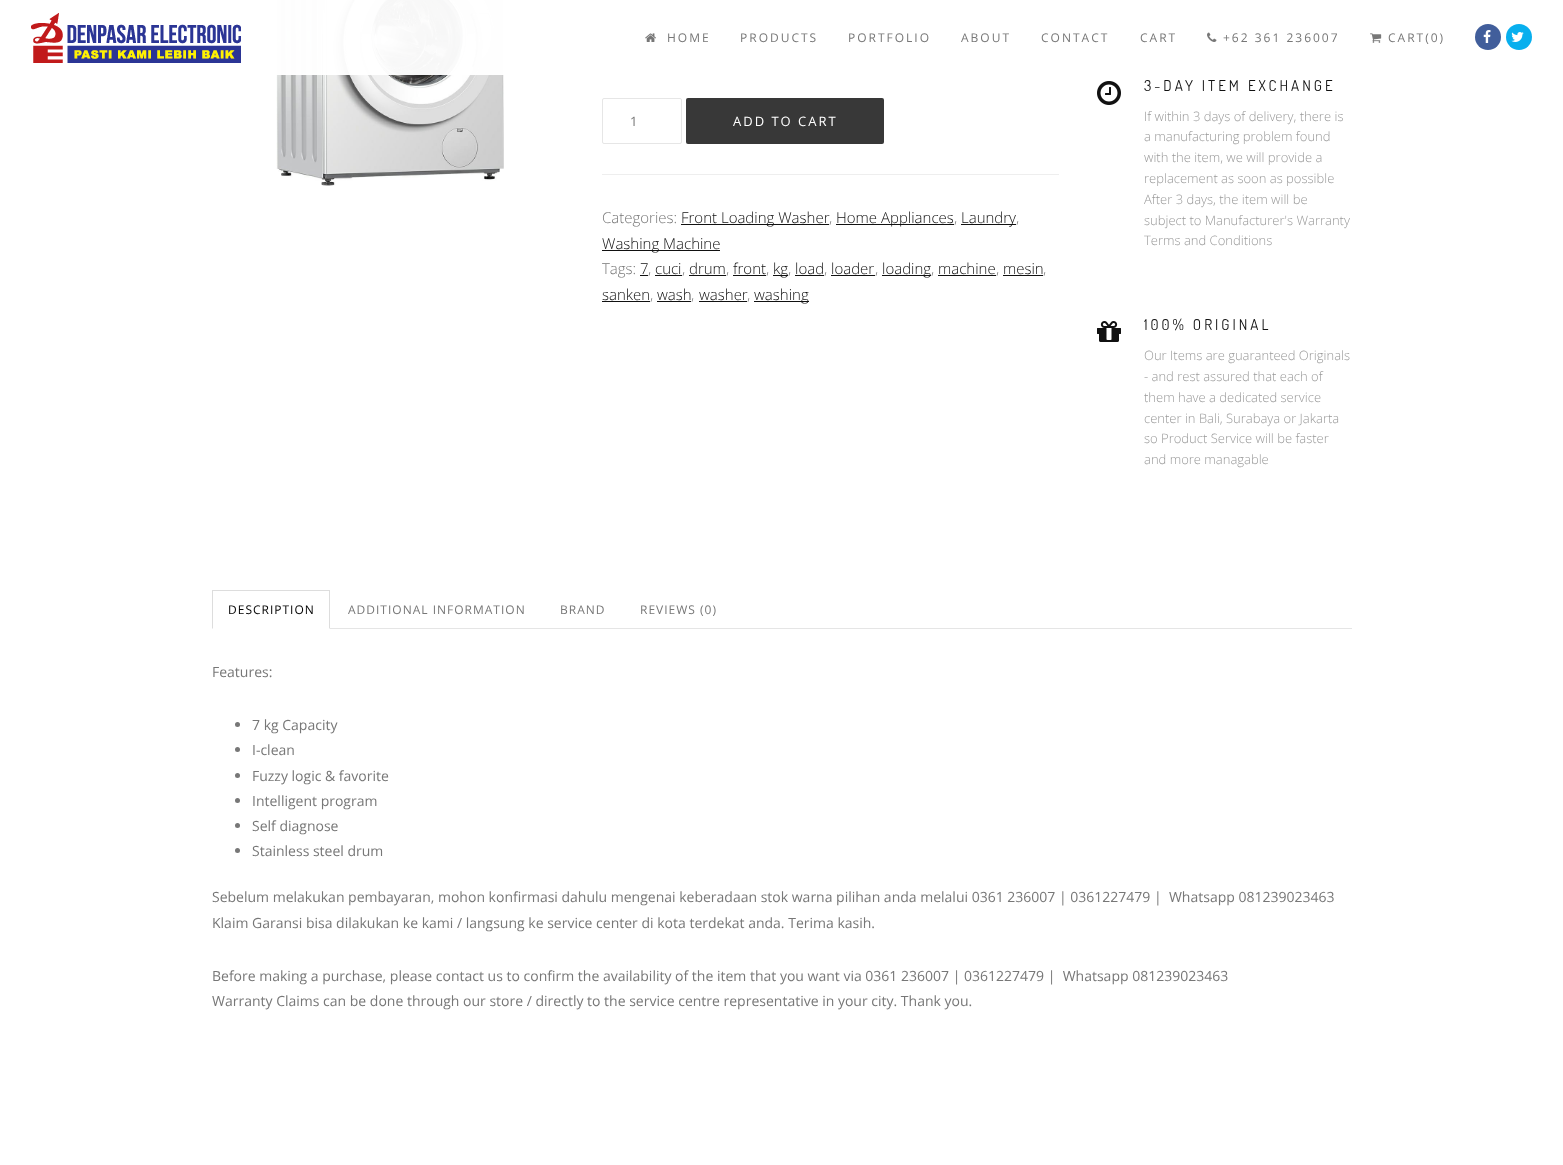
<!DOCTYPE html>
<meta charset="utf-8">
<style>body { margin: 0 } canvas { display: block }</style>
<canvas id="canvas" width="1563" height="1165"></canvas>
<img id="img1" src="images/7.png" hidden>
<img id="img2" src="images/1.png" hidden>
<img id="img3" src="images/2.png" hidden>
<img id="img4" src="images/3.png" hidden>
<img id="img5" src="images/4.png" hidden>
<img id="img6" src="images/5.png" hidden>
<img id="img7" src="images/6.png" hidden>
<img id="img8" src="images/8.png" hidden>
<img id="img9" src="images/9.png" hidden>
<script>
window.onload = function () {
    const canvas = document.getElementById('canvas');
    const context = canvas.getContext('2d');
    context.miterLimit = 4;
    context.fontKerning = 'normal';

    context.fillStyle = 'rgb(255, 255, 255)';
    context.fillRect(0, 0, 1563, 1165);
    context.drawImage(document.getElementById('img1'), 276, 0, 228, 186);
    context.fillStyle = 'rgb(238, 238, 238)';
    context.fillRect(602, 36, 457, 1);
    context.fillRect(602, 67, 457, 1);
    context.fillStyle = 'rgba(255, 255, 255, 0.97)';
    context.fillRect(276, 0, 783, 75);
    context.drawImage(document.getElementById('img2'), 31, 13, 210, 50);
    context.drawImage(document.getElementById('img3'), 645, 33, 11, 9);
    context.drawImage(document.getElementById('img4'), 1207, 32, 10, 10);
    context.drawImage(document.getElementById('img5'), 1370, 33, 12, 10);
    context.fillStyle = 'rgb(65, 94, 155)';
    context.beginPath();
    context.arc(1488, 37, 13, 0, 2 * Math.PI);
    context.fill();
    context.drawImage(document.getElementById('img6'), 1483, 30, 8, 13);
    context.fillStyle = 'rgb(8, 175, 238)';
    context.beginPath();
    context.arc(1519, 37, 13, 0, 2 * Math.PI);
    context.fill();
    context.drawImage(document.getElementById('img7'), 1511, 32, 13, 10);
    context.beginPath();
    context.roundRect(602.5, 98.5, 79, 45, 1.5);
    context.strokeStyle = 'rgb(230, 230, 230)';
    context.stroke();
    context.fillStyle = 'rgb(56, 56, 56)';
    context.beginPath();
    context.roundRect(686, 98, 198, 46, 2);
    context.fill();
    context.fillStyle = 'rgb(238, 238, 238)';
    context.fillRect(602, 174, 457, 1);
    context.fillStyle = 'rgb(17, 17, 17)';
    context.fillRect(681, 224, 148, 1);
    context.fillRect(836, 224, 118, 1);
    context.fillRect(961, 224, 55, 1);
    context.fillRect(602, 250, 118, 1);
    context.fillRect(640, 275, 8, 1);
    context.fillRect(655, 275, 27, 1);
    context.fillRect(689, 275, 37, 1);
    context.fillRect(733, 275, 33, 1);
    context.fillRect(773, 275, 15, 1);
    context.fillRect(795, 275, 29, 1);
    context.fillRect(831, 275, 44, 1);
    context.fillRect(882, 275, 49, 1);
    context.fillRect(938, 275, 58, 1);
    context.fillRect(1003, 275, 40, 1);
    context.fillRect(602, 301, 48, 1);
    context.fillRect(657, 301, 34, 1);
    context.fillRect(699, 301, 48, 1);
    context.fillRect(754, 301, 55, 1);
    context.drawImage(document.getElementById('img8'), 1097, 81, 24, 24);
    context.drawImage(document.getElementById('img9'), 1097, 321, 24, 21);
    context.fillStyle = 'rgb(229, 229, 229)';
    context.fillRect(330, 628, 1022, 1);
    context.fillStyle = 'rgb(221, 221, 221)';
    context.fillRect(212, 590, 118, 1);
    context.beginPath();
    context.moveTo(330, 590);
    context.lineTo(330, 629);
    context.lineTo(329, 628);
    context.lineTo(329, 591);
    context.closePath();
    context.fill();
    context.beginPath();
    context.moveTo(212, 629);
    context.lineTo(212, 590);
    context.lineTo(213, 591);
    context.lineTo(213, 628);
    context.closePath();
    context.fill();
    context.fillStyle = 'rgb(119, 119, 119)';
    context.beginPath();
    context.arc(237.5, 724.5, 2.5, 0, 2 * Math.PI);
    context.fill();
    context.beginPath();
    context.arc(237.5, 749.5, 2.5, 0, 2 * Math.PI);
    context.fill();
    context.beginPath();
    context.arc(237.5, 775.5, 2.5, 0, 2 * Math.PI);
    context.fill();
    context.beginPath();
    context.arc(237.5, 800.5, 2.5, 0, 2 * Math.PI);
    context.fill();
    context.beginPath();
    context.arc(237.5, 825.5, 2.5, 0, 2 * Math.PI);
    context.fill();
    context.beginPath();
    context.arc(237.5, 850.5, 2.5, 0, 2 * Math.PI);
    context.fill();
    context.letterSpacing = '2px';
    context.font = '12px Open Sans';
    context.fillText('HOME', 667, 42);
    context.fillText('PRODUCTS', 740, 42);
    context.fillText('PORTFOLIO', 848, 42);
    context.fillText('ABOUT', 961, 42);
    context.fillText('CONTACT', 1041, 42);
    context.fillText('CART', 1140, 42);
    context.fillText('+62 361 236007', 1223, 42);
    context.fillText('CART(0)', 1388, 42);
    context.letterSpacing = '1px';
    context.font = '13px Open Sans';
    context.fillText('1', 630, 126);
    context.letterSpacing = '2px';
    context.fillStyle = 'rgb(255, 255, 255)';
    context.fillText('ADD TO CART', 733, 126);
    context.letterSpacing = '0px';
    context.font = '300 15px Open Sans';
    context.fillStyle = 'rgb(119, 119, 119)';
    context.fillText('Categories:', 602, 223);
    context.fillStyle = 'rgb(17, 17, 17)';
    context.fillText('Front Loading Washer', 681, 223);
    context.fillStyle = 'rgb(119, 119, 119)';
    context.fillText(',', 829, 223);
    context.fillStyle = 'rgb(17, 17, 17)';
    context.fillText('Home Appliances', 836, 223);
    context.fillStyle = 'rgb(119, 119, 119)';
    context.fillText(',', 954, 223);
    context.fillStyle = 'rgb(17, 17, 17)';
    context.fillText('Laundry', 961, 223);
    context.fillStyle = 'rgb(119, 119, 119)';
    context.fillText(',', 1016, 223);
    context.fillStyle = 'rgb(17, 17, 17)';
    context.fillText('Washing Machine', 602, 249);
    context.fillStyle = 'rgb(119, 119, 119)';
    context.fillText('Tags:', 602, 274);
    context.fillStyle = 'rgb(17, 17, 17)';
    context.fillText('7', 640, 274);
    context.fillStyle = 'rgb(119, 119, 119)';
    context.fillText(',', 648, 274);
    context.fillStyle = 'rgb(17, 17, 17)';
    context.fillText('cuci', 655, 274);
    context.fillStyle = 'rgb(119, 119, 119)';
    context.fillText(',', 682, 274);
    context.fillStyle = 'rgb(17, 17, 17)';
    context.fillText('drum', 689, 274);
    context.fillStyle = 'rgb(119, 119, 119)';
    context.fillText(',', 726, 274);
    context.fillStyle = 'rgb(17, 17, 17)';
    context.fillText('front', 733, 274);
    context.fillStyle = 'rgb(119, 119, 119)';
    context.fillText(',', 766, 274);
    context.fillStyle = 'rgb(17, 17, 17)';
    context.fillText('kg', 773, 274);
    context.fillStyle = 'rgb(119, 119, 119)';
    context.fillText(',', 788, 274);
    context.fillStyle = 'rgb(17, 17, 17)';
    context.fillText('load', 795, 274);
    context.fillStyle = 'rgb(119, 119, 119)';
    context.fillText(',', 824, 274);
    context.fillStyle = 'rgb(17, 17, 17)';
    context.fillText('loader', 831, 274);
    context.fillStyle = 'rgb(119, 119, 119)';
    context.fillText(',', 875, 274);
    context.fillStyle = 'rgb(17, 17, 17)';
    context.fillText('loading', 882, 274);
    context.fillStyle = 'rgb(119, 119, 119)';
    context.fillText(',', 931, 274);
    context.fillStyle = 'rgb(17, 17, 17)';
    context.fillText('machine', 938, 274);
    context.fillStyle = 'rgb(119, 119, 119)';
    context.fillText(',', 996, 274);
    context.fillStyle = 'rgb(17, 17, 17)';
    context.fillText('mesin', 1003, 274);
    context.fillStyle = 'rgb(119, 119, 119)';
    context.fillText(',', 1043, 274);
    context.fillStyle = 'rgb(17, 17, 17)';
    context.fillText('sanken', 602, 300);
    context.fillStyle = 'rgb(119, 119, 119)';
    context.fillText(',', 650, 300);
    context.fillStyle = 'rgb(17, 17, 17)';
    context.fillText('wash', 657, 300);
    context.fillStyle = 'rgb(119, 119, 119)';
    context.fillText(',', 691, 300);
    context.fillStyle = 'rgb(17, 17, 17)';
    context.fillText('washer', 699, 300);
    context.fillStyle = 'rgb(119, 119, 119)';
    context.fillText(',', 747, 300);
    context.fillStyle = 'rgb(17, 17, 17)';
    context.fillText('washing', 754, 300);
    context.letterSpacing = '3px';
    context.font = '15px Dosis';
    context.fillText('3-DAY ITEM EXCHANGE', 1144, 91);
    context.letterSpacing = '0px';
    context.font = '300 13px Open Sans';
    context.fillStyle = 'rgb(153, 153, 153)';
    context.fillText('If within 3 days of delivery, there is', 1144, 121);
    context.fillText('a manufacturing problem found', 1144, 141);
    context.fillText('with the item, we will provide a', 1144, 162);
    context.fillText('replacement as soon as possible', 1144, 183);
    context.fillText('After 3 days, the item will be', 1144, 204);
    context.fillText('subject to Manufacturer\'s Warranty', 1144, 225);
    context.fillText('Terms and Conditions', 1144, 245);
    context.letterSpacing = '3px';
    context.font = '15px Dosis';
    context.fillStyle = 'rgb(17, 17, 17)';
    context.fillText('100% ORIGINAL', 1144, 330);
    context.letterSpacing = '0px';
    context.font = '300 13px Open Sans';
    context.fillStyle = 'rgb(153, 153, 153)';
    context.fillText('Our Items are guaranteed Originals', 1144, 360);
    context.fillText('- and rest assured that each of', 1144, 381);
    context.fillText('them have a dedicated service', 1144, 402);
    context.fillText('center in Bali, Surabaya or Jakarta', 1144, 423);
    context.fillText('so Product Service will be faster', 1144, 443);
    context.fillText('and more managable', 1144, 464);
    context.letterSpacing = '1px';
    context.font = '12px Open Sans';
    context.fillStyle = 'rgb(0, 0, 0)';
    context.fillText('DESCRIPTION', 228, 614);
    context.fillStyle = 'rgb(119, 119, 119)';
    context.fillText('ADDITIONAL INFORMATION', 348, 614);
    context.fillText('BRAND', 560, 614);
    context.fillText('REVIEWS (0)', 640, 614);
    context.letterSpacing = '0px';
    context.font = '14px Open Sans';
    context.fillText('Features:', 212, 677);
    context.fillText('7 kg Capacity', 252, 730);
    context.fillText('I-clean', 252, 755);
    context.fillText('Fuzzy logic & favorite', 252, 781);
    context.fillText('Intelligent program', 252, 806);
    context.fillText('Self diagnose', 252, 831);
    context.fillText('Stainless steel drum', 252, 856);
    context.fillText('Sebelum melakukan pembayaran, mohon konfirmasi dahulu mengenai keberadaan stok warna pilihan anda melalui 0361 236007 | 0361227479 |  Whatsapp 081239023463', 212, 902);
    context.fillText('Klaim Garansi bisa dilakukan ke kami / langsung ke service center di kota terdekat anda. Terima kasih.', 212, 928);
    context.fillText('Before making a purchase, please contact us to confirm the availability of the item that you want via 0361 236007 | 0361227479 |  Whatsapp 081239023463', 212, 981);
    context.fillText('Warranty Claims can be done through our store / directly to the service centre representative in your city. Thank you.', 212, 1006);
};
</script>
